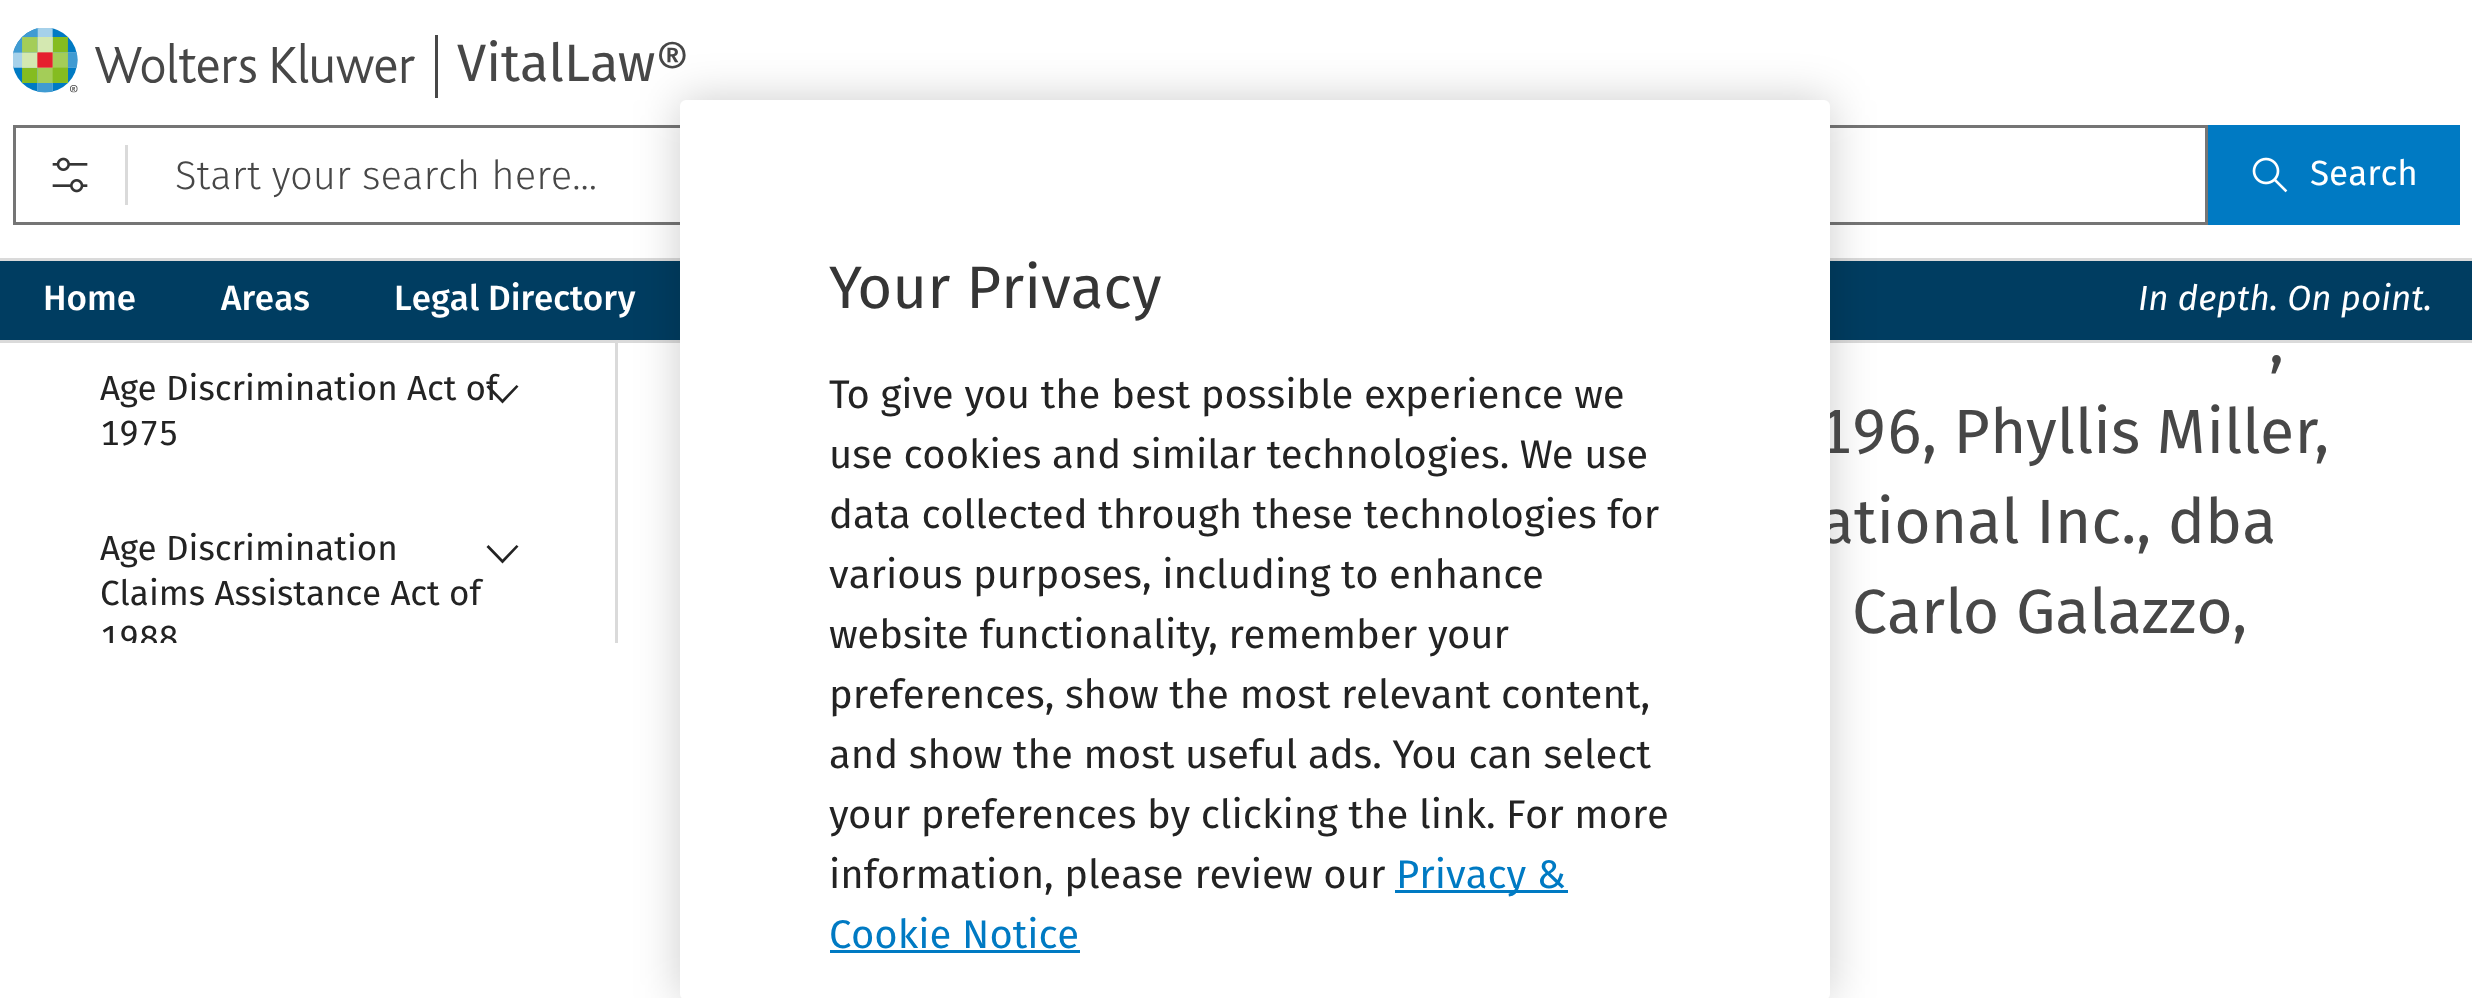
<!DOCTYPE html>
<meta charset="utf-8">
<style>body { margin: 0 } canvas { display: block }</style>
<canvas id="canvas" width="2472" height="998"></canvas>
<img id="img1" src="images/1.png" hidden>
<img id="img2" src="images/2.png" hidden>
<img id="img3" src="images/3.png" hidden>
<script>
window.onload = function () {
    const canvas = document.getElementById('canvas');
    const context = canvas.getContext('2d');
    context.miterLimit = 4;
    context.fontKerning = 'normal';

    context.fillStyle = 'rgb(255, 255, 255)';
    context.fillRect(0, 0, 2472, 998);
    context.fillStyle = 'rgb(218, 218, 218)';
    context.fillRect(0, 258, 2472, 3);
    context.drawImage(document.getElementById('img1'), 13, 28, 402, 65);
    context.fillStyle = 'rgb(71, 71, 71)';
    context.fillRect(435, 35, 3, 63);
    context.strokeStyle = 'rgb(117, 117, 117)';
    context.lineWidth = 3;
    context.strokeRect(14.5, 126.5, 2192, 97);
    context.drawImage(document.getElementById('img2'), 52, 157, 36, 36);
    context.fillStyle = 'rgb(218, 218, 218)';
    context.fillRect(125, 145, 3, 60);
    context.fillStyle = 'rgb(0, 122, 195)';
    context.fillRect(2208, 125, 252, 100);
    context.drawImage(document.getElementById('img3'), 2252, 157, 36, 36);
    context.fillStyle = 'rgb(0, 61, 97)';
    context.fillRect(0, 261, 2472, 79);
    context.fillStyle = 'rgb(218, 218, 218)';
    context.fillRect(0, 340, 2472, 3);
    context.fillRect(615, 343, 3, 300);
    context.fillStyle = 'rgb(35, 35, 35)';
    context.beginPath();
    context.moveTo(518.5, 386.5);
    context.lineTo(502.5, 403.5);
    context.lineTo(486.5, 387);
    context.lineTo(488.5, 385);
    context.lineTo(502.5, 399.5);
    context.lineTo(516.5, 385);
    context.closePath();
    context.fill();
    context.beginPath();
    context.moveTo(518.5, 546.5);
    context.lineTo(502.5, 563.5);
    context.lineTo(486.5, 547);
    context.lineTo(488.5, 545);
    context.lineTo(502.5, 559.5);
    context.lineTo(516.5, 545);
    context.closePath();
    context.fill();
    context.fillStyle = 'rgba(0, 0, 0, 0.2)';
    context.filter = 'blur(22.5px)';
    context.beginPath();
    context.roundRect(680, 100, 1150, 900, 6);
    context.fill();
    context.filter = 'none';
    context.font = '52.5px Fira Sans';
    context.fillStyle = 'rgb(71, 71, 71)';
    context.fillText('VitalLaw®', 457, 81);
    context.font = '300 40px Fira Sans';
    context.fillText('Start your search here...', 175, 189);
    context.font = '35px Fira Sans';
    context.fillStyle = 'rgb(255, 255, 255)';
    context.fillText('Search', 2310, 185);
    context.font = '500 35px Fira Sans';
    context.fillText('Home', 43, 310);
    context.fillText('Areas', 221, 310);
    context.fillText('Legal Directory', 394, 310);
    context.font = 'italic 35px Fira Sans';
    context.fillText('In depth. On point.', 2138, 310);
    context.font = '35px Fira Sans';
    context.fillStyle = 'rgb(35, 35, 35)';
    context.fillText('Age Discrimination Act of', 100, 400);
    context.font = '35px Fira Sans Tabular';
    context.fillText('1975', 100, 445);
    context.font = '35px Fira Sans';
    context.fillText('Age Discrimination', 100, 560);
    context.fillText('Claims Assistance Act of', 100, 605);
    context.save();
    context.beginPath();
    context.rect(100, 528, 403, 115);
    context.clip();
    context.font = '35px Fira Sans Tabular';
    context.fillText('1988', 100, 650);
    context.restore();
    context.font = '62.5px Fira Sans Tabular';
    context.fillStyle = 'rgb(71, 71, 71)';
    context.fillText(',', 2269, 363);
    context.fillText('196, Phyllis Miller,', 1817, 453);
    context.font = '62.5px Fira Sans';
    context.fillText('ational Inc., dba', 1820, 543);
    context.fillText('Carlo Galazzo,', 1852, 633);
    context.fillStyle = 'rgb(255, 255, 255)';
    context.beginPath();
    context.roundRect(680, 100, 1150, 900, 6);
    context.fill();
    context.font = '60px Fira Sans';
    context.fillStyle = 'rgb(53, 53, 53)';
    context.fillText('Your Privacy', 829, 308);
    context.font = '40px Fira Sans';
    context.fillStyle = 'rgb(35, 35, 35)';
    context.fillText('To give you the best possible experience we', 829, 408);
    context.fillText('use cookies and similar technologies. We use', 829, 468);
    context.fillText('data collected through these technologies for', 829, 528);
    context.fillText('various purposes, including to enhance', 829, 588);
    context.fillText('website functionality, remember your', 829, 648);
    context.fillText('preferences, show the most relevant content,', 829, 708);
    context.fillText('and show the most useful ads. You can select', 829, 768);
    context.fillText('your preferences by clicking the link. For more', 829, 828);
    context.fillText('information, please review our', 829, 888);
    context.fillStyle = 'rgb(0, 122, 195)';
    context.fillRect(1395, 890, 173, 3);
    context.fillText('Privacy &', 1396, 888);
    context.fillText('Cookie Notice', 829, 948);
    context.fillRect(830, 950, 250, 3);
};
</script>
